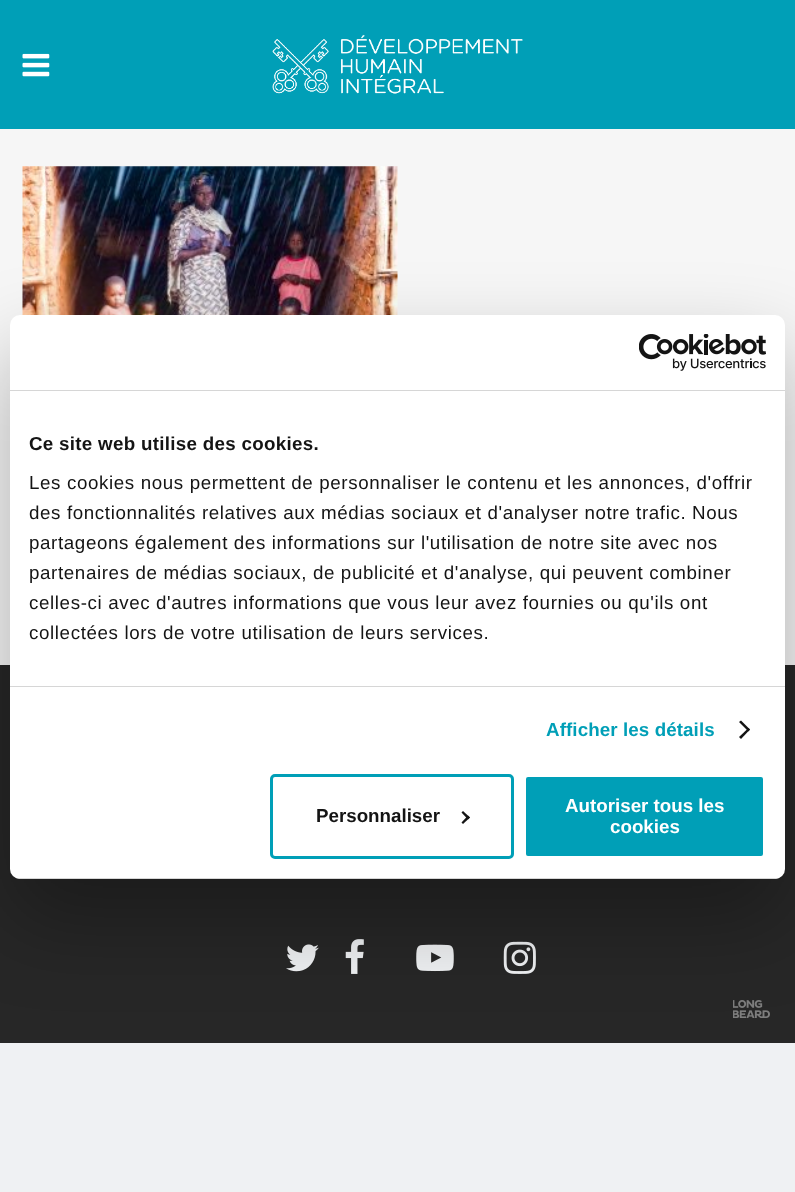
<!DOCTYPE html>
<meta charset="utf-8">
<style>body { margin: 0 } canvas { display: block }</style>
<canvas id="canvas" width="795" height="1192"></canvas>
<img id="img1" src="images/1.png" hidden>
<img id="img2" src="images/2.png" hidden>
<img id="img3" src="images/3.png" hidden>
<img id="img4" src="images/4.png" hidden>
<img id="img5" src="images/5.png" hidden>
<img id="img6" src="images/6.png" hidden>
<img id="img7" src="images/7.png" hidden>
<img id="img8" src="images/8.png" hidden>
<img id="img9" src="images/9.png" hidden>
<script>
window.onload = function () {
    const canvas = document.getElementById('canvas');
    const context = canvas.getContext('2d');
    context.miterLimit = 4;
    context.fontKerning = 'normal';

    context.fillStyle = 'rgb(239, 241, 243)';
    context.fillRect(0, 0, 795, 1192);
    context.fillStyle = 'rgb(246, 246, 246)';
    context.fillRect(0, 129, 795, 536);
    context.fillStyle = 'rgb(0, 159, 183)';
    context.fillRect(0, 0, 795, 129);
    context.drawImage(document.getElementById('img1'), 22, 53, 28, 24);
    context.drawImage(document.getElementById('img2'), 272, 34, 251, 60);
    context.drawImage(document.getElementById('img3'), 22, 166, 376, 149);
    context.fillStyle = 'rgb(39, 39, 39)';
    context.fillRect(0, 665, 795, 378);
    context.drawImage(document.getElementById('img4'), 286, 944, 33, 28);
    context.drawImage(document.getElementById('img5'), 345, 939, 19, 35);
    context.drawImage(document.getElementById('img6'), 416, 944, 38, 28);
    context.drawImage(document.getElementById('img7'), 503, 941, 33, 33);
    context.drawImage(document.getElementById('img8'), 733, 1000, 37, 18);
    context.fillStyle = 'rgba(0, 0, 0, 0.3)';
    context.filter = 'blur(42.5px)';
    context.beginPath();
    context.roundRect(10, 355, 775, 564, 10);
    context.fill();
    context.filter = 'none';
    context.fillStyle = 'rgb(255, 255, 255)';
    context.beginPath();
    context.roundRect(10, 315, 775, 564, 10);
    context.fill();
    context.fillStyle = 'rgb(214, 214, 214)';
    context.fillRect(10, 390, 775, 1);
    context.drawImage(document.getElementById('img9'), 639, 334, 127, 37);
    context.fillRect(10, 686, 775, 1);
    context.fillStyle = 'rgb(20, 20, 20)';
    context.beginPath();
    context.moveTo(741, 720.5);
    context.lineTo(750, 729.5);
    context.lineTo(748.5, 731.5);
    context.lineTo(739, 722);
    context.closePath();
    context.fill();
    context.beginPath();
    context.moveTo(748.5, 728);
    context.lineTo(750, 729.5);
    context.lineTo(741, 739);
    context.lineTo(739, 737);
    context.closePath();
    context.fill();
    context.save();
    context.beginPath();
    context.roundRect(10, 315, 775, 564, 10);
    context.clip();
    context.fillStyle = 'rgb(214, 214, 214)';
    context.fillRect(10, 878, 775, 1);
    context.restore();
    context.beginPath();
    context.roundRect(271.5, 775.5, 241, 82, 3.5);
    context.strokeStyle = 'rgb(0, 159, 183)';
    context.lineWidth = 3;
    context.stroke();
    context.beginPath();
    context.moveTo(463, 811);
    context.lineTo(470, 817.5);
    context.lineTo(468, 819.5);
    context.lineTo(461.5, 812.5);
    context.closePath();
    context.fill();
    context.beginPath();
    context.moveTo(468, 815.5);
    context.lineTo(470, 817.5);
    context.lineTo(463, 824);
    context.lineTo(461.5, 822.5);
    context.closePath();
    context.fill();
    context.fillStyle = 'rgb(0, 159, 183)';
    context.beginPath();
    context.roundRect(524.5, 775.5, 240, 82, 3.5);
    context.fill();
    context.strokeStyle = 'rgb(255, 255, 255)';
    context.stroke();
    context.letterSpacing = '0.3px';
    context.font = 'bold 18.75px Liberation Sans';
    context.fillStyle = 'rgb(20, 20, 20)';
    context.fillText('Ce site web utilise des cookies.', 29, 450);
    context.letterSpacing = '0.62px';
    context.font = '18.75px Liberation Sans';
    context.fillText('Les cookies nous permettent de personnaliser le contenu et les annonces, d\'offrir', 29, 489);
    context.fillText('des fonctionnalités relatives aux médias sociaux et d\'analyser notre trafic. Nous', 29, 519);
    context.fillText('partageons également des informations sur l\'utilisation de notre site avec nos', 29, 549);
    context.fillText('partenaires de médias sociaux, de publicité et d\'analyse, qui peuvent combiner', 29, 579);
    context.fillText('celles-ci avec d\'autres informations que vous leur avez fournies ou qu\'ils ont', 29, 609);
    context.fillText('collectées lors de votre utilisation de leurs services.', 29, 639);
    context.letterSpacing = '0.1px';
    context.font = 'bold 18.75px Liberation Sans';
    context.fillStyle = 'rgb(0, 159, 183)';
    context.fillText('Afficher les détails', 546, 736);
    context.letterSpacing = '0px';
    context.fillStyle = 'rgb(20, 20, 20)';
    context.fillText('Personnaliser', 316, 822);
    context.fillStyle = 'rgb(255, 255, 255)';
    context.fillText('Autoriser tous les', 565, 812);
    context.fillText('cookies', 610, 833);
};
</script>
